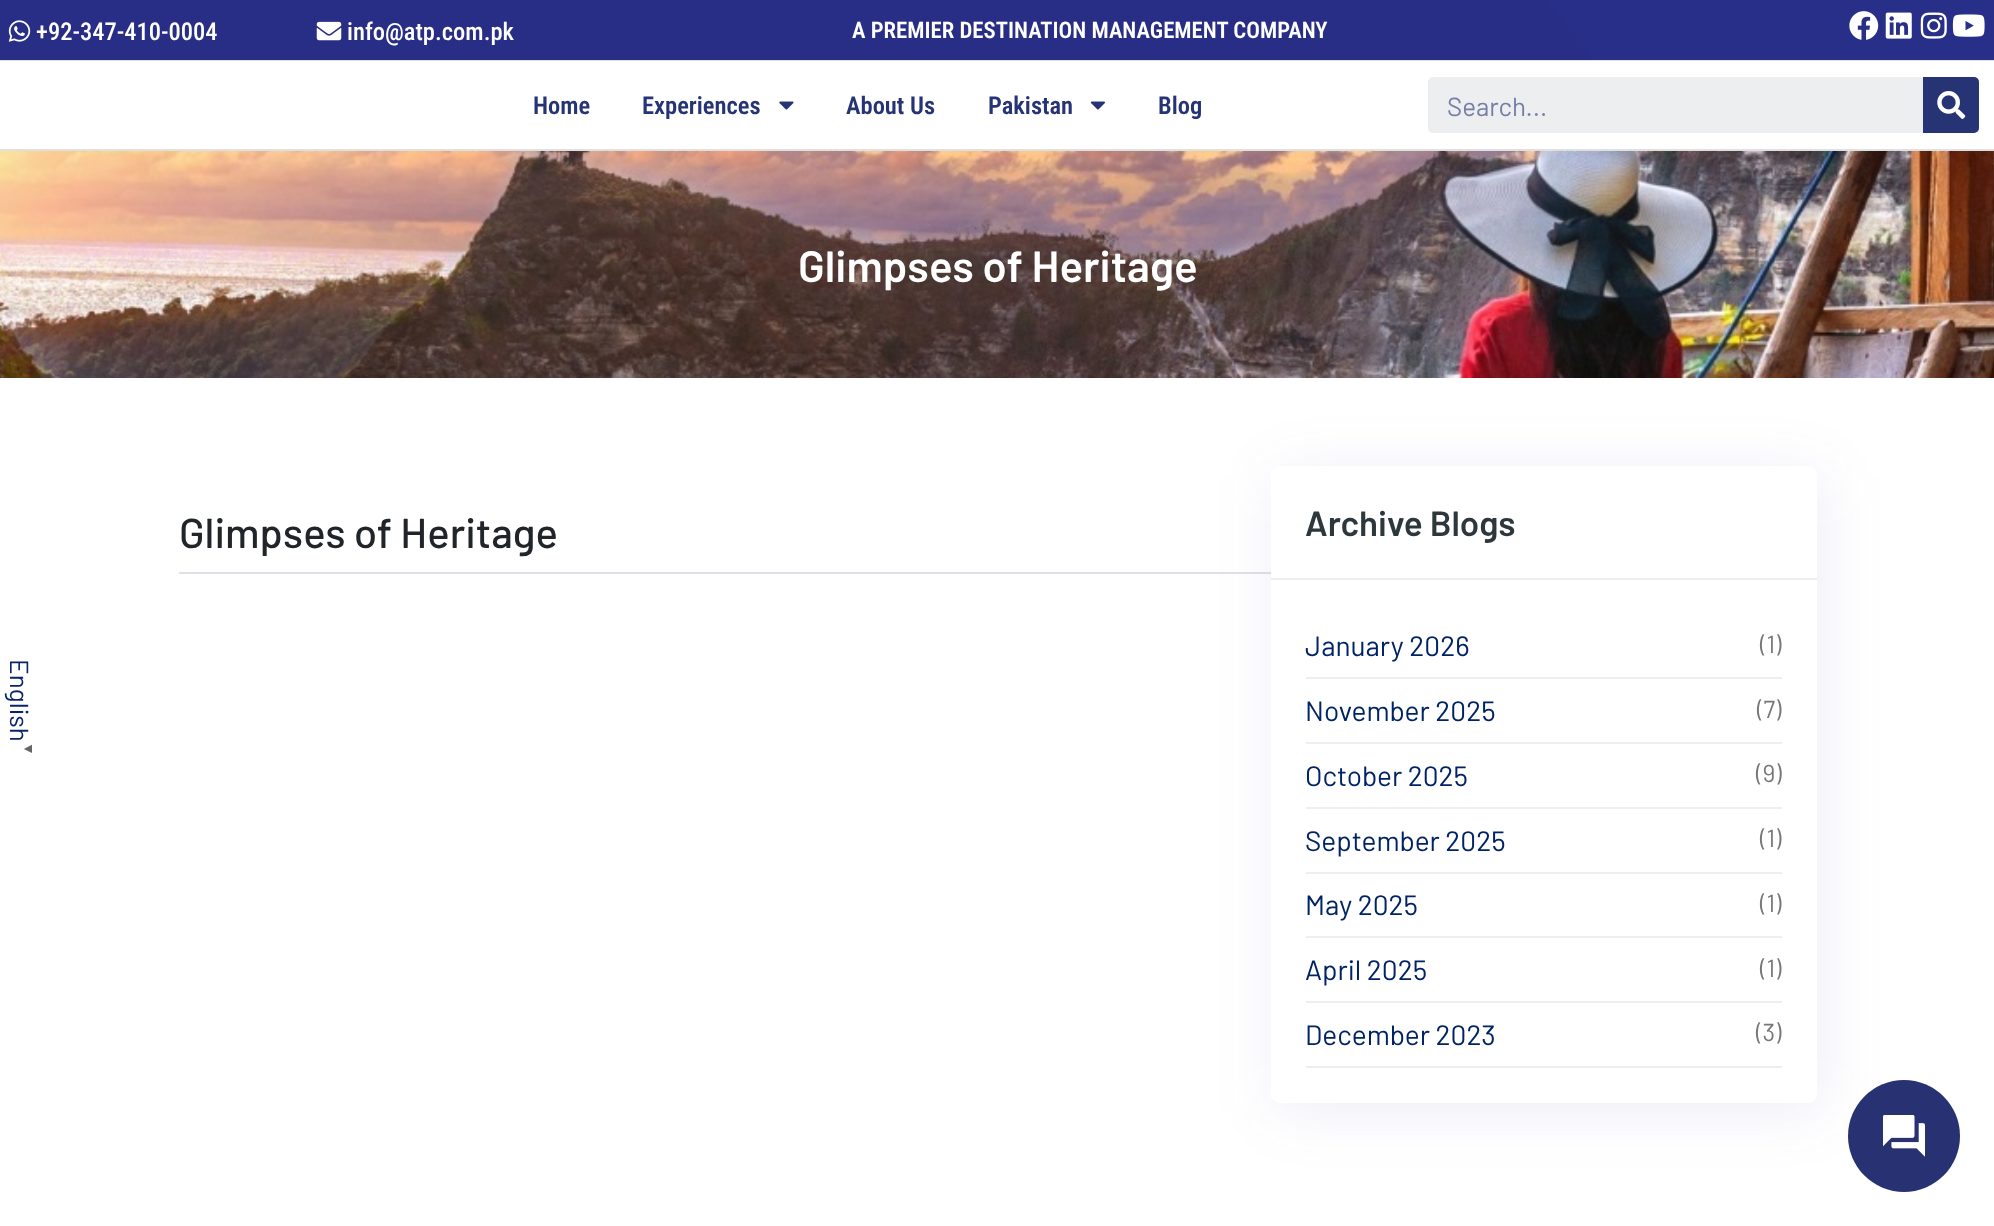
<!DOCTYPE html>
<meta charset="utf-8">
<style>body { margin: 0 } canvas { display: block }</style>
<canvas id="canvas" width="1994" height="1226"></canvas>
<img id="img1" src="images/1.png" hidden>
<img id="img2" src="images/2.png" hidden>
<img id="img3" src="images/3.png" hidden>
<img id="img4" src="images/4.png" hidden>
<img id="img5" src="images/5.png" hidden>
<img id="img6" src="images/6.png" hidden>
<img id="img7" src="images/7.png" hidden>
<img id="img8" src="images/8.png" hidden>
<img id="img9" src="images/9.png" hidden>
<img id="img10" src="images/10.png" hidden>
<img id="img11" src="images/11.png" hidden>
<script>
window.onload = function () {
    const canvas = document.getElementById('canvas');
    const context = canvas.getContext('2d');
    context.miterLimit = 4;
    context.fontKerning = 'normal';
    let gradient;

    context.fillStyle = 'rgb(255, 255, 255)';
    context.fillRect(0, 0, 1994, 1226);
    gradient = context.createLinearGradient(397, 533, 1598, -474);
    gradient.addColorStop(0.78, 'rgb(40, 45, 133)');
    gradient.addColorStop(0.78, 'rgb(40, 47, 136)');
    context.fillStyle = gradient;
    context.fillRect(0, 0, 1994, 60);
    context.fillStyle = 'rgb(224, 224, 224)';
    context.fillRect(0, 60, 1994, 1);
    context.drawImage(document.getElementById('img1'), 8, 20, 23, 22);
    context.drawImage(document.getElementById('img2'), 316, 21, 26, 20);
    context.drawImage(document.getElementById('img3'), 1849, 11, 30, 29);
    context.drawImage(document.getElementById('img4'), 1885, 12, 27, 27);
    context.drawImage(document.getElementById('img5'), 1920, 12, 27, 27);
    context.drawImage(document.getElementById('img6'), 1952, 14, 33, 23);
    context.fillRect(0, 149, 1994, 2);
    context.drawImage(document.getElementById('img7'), 779, 101, 15, 9);
    context.drawImage(document.getElementById('img8'), 1090, 101, 15, 9);
    context.fillStyle = 'rgb(236, 238, 239)';
    context.beginPath();
    context.roundRect(1428, 77, 551, 56, 5);
    context.fill();
    context.fillStyle = 'rgb(38, 51, 117)';
    context.beginPath();
    context.roundRect(1923, 77, 56, 56, [0, 5, 5, 0]);
    context.fill();
    context.drawImage(document.getElementById('img9'), 1937, 91, 29, 28);
    context.drawImage(document.getElementById('img10'), 0, 151, 1994, 227);
    context.fillStyle = 'rgb(222, 226, 230)';
    context.fillRect(179, 572, 1092, 2);
    context.fillStyle = 'rgba(86, 68, 169, 0.1)';
    context.filter = 'blur(30.5px)';
    context.beginPath();
    context.roundRect(1276, 474, 546, 637, 9);
    context.fill();
    context.filter = 'none';
    context.fillStyle = 'rgb(255, 255, 255)';
    context.beginPath();
    context.roundRect(1271, 466, 546, 637, 9);
    context.fill();
    context.fillStyle = 'rgb(238, 238, 238)';
    context.fillRect(1271, 578, 546, 2);
    context.fillRect(1306, 677, 476, 2);
    context.fillRect(1306, 742, 476, 2);
    context.fillRect(1306, 807, 476, 2);
    context.fillRect(1306, 872, 476, 2);
    context.fillRect(1306, 936, 476, 2);
    context.fillRect(1306, 1001, 476, 2);
    context.fillRect(1306, 1066, 476, 2);
    context.fillStyle = 'rgb(40, 49, 114)';
    context.beginPath();
    context.arc(1904, 1136, 56, 0, 2 * Math.PI);
    context.fill();
    context.drawImage(document.getElementById('img11'), 1883, 1115, 42, 42);
    context.font = '500 24.5px Roboto Condensed';
    context.fillStyle = 'rgb(255, 255, 255)';
    context.fillText('+92-347-410-0004', 36, 40);
    context.fillText('info@atp.com.pk', 347, 40);
    context.font = '600 22.75px Roboto Condensed';
    context.fillText('A PREMIER DESTINATION MANAGEMENT COMPANY', 852, 38);
    context.font = '600 24.5px Roboto Condensed';
    context.fillStyle = 'rgb(38, 51, 117)';
    context.fillText('Home', 533, 114);
    context.fillText('Experiences', 642, 114);
    context.fillText('About Us', 846, 114);
    context.fillText('Pakistan', 988, 114);
    context.fillText('Blog', 1158, 114);
    context.font = '26px Barlow';
    context.fillStyle = 'rgb(117, 126, 166)';
    context.fillText('Search...', 1447, 116);
    context.font = '600 43.75px Barlow';
    context.fillStyle = 'rgb(255, 255, 255)';
    context.fillText('Glimpses of Heritage', 798, 282);
    context.font = '26px Barlow';
    context.fillStyle = 'rgb(10, 36, 106)';
    context.save();
    context.translate(10, 659);
    context.rotate(90 * Math.PI / 180);
    context.fillText('English', 0, 0);
    context.restore();
    context.font = 'bold 14px Liberation Sans';
    context.fillStyle = 'rgb(102, 102, 102)';
    context.save();
    context.translate(24, 742);
    context.rotate(90 * Math.PI / 180);
    context.fillText('▼', 0, 0);
    context.restore();
    context.font = '500 41.75px Barlow';
    context.fillStyle = 'rgb(33, 37, 41)';
    context.fillText('Glimpses of Heritage', 179, 548);
    context.font = '600 35px Barlow';
    context.fillStyle = 'rgb(45, 55, 60)';
    context.fillText('Archive Blogs', 1305, 536);
    context.font = '28px Barlow';
    context.fillStyle = 'rgb(0, 35, 102)';
    context.fillText('January 2026', 1305, 656);
    context.font = '24.5px Barlow';
    context.fillStyle = 'rgb(119, 119, 119)';
    context.fillText('(1)', 1760, 653);
    context.font = '28px Barlow';
    context.fillStyle = 'rgb(0, 35, 102)';
    context.fillText('November 2025', 1305, 721);
    context.font = '24.5px Barlow';
    context.fillStyle = 'rgb(119, 119, 119)';
    context.fillText('(7)', 1757, 718);
    context.font = '28px Barlow';
    context.fillStyle = 'rgb(0, 35, 102)';
    context.fillText('October 2025', 1305, 786);
    context.font = '24.5px Barlow';
    context.fillStyle = 'rgb(119, 119, 119)';
    context.fillText('(9)', 1756, 782);
    context.font = '28px Barlow';
    context.fillStyle = 'rgb(0, 35, 102)';
    context.fillText('September 2025', 1305, 851);
    context.font = '24.5px Barlow';
    context.fillStyle = 'rgb(119, 119, 119)';
    context.fillText('(1)', 1760, 847);
    context.font = '28px Barlow';
    context.fillStyle = 'rgb(0, 35, 102)';
    context.fillText('May 2025', 1305, 915);
    context.font = '24.5px Barlow';
    context.fillStyle = 'rgb(119, 119, 119)';
    context.fillText('(1)', 1760, 912);
    context.font = '28px Barlow';
    context.fillStyle = 'rgb(0, 35, 102)';
    context.fillText('April 2025', 1305, 980);
    context.font = '24.5px Barlow';
    context.fillStyle = 'rgb(119, 119, 119)';
    context.fillText('(1)', 1760, 977);
    context.font = '28px Barlow';
    context.fillStyle = 'rgb(0, 35, 102)';
    context.fillText('December 2023', 1305, 1045);
    context.font = '24.5px Barlow';
    context.fillStyle = 'rgb(119, 119, 119)';
    context.fillText('(3)', 1756, 1041);
};
</script>
